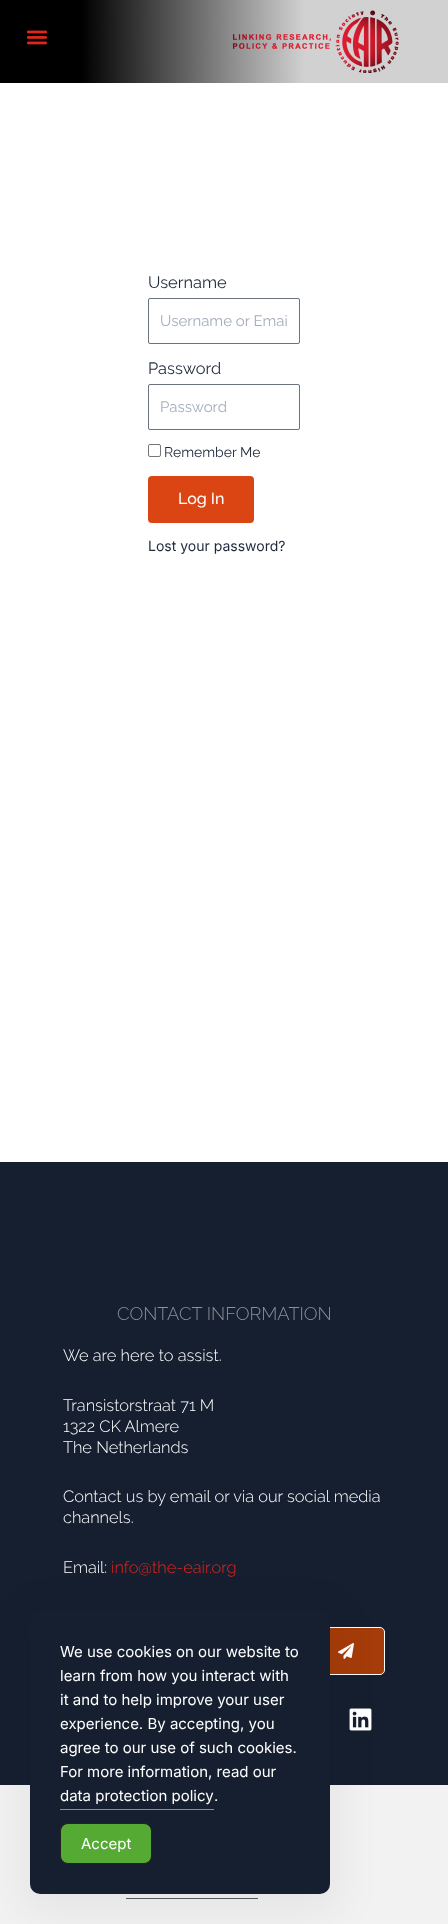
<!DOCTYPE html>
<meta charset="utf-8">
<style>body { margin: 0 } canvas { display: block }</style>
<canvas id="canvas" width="448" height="1924"></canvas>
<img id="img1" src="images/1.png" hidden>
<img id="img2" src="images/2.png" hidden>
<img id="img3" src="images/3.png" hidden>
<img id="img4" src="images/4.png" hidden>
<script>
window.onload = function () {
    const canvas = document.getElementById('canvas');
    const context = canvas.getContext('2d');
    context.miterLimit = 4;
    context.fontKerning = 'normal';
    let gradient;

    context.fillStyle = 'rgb(255, 255, 255)';
    context.fillRect(0, 0, 448, 1924);
    gradient = context.createLinearGradient(0, 42, 448, 41);
    gradient.addColorStop(0.18, 'rgb(0, 0, 0)');
    gradient.addColorStop(0.68, 'rgb(209, 209, 209)');
    context.fillStyle = gradient;
    context.fillRect(0, 0, 448, 83);
    context.drawImage(document.getElementById('img1'), 26, 30, 22, 15);
    context.drawImage(document.getElementById('img2'), 232, 10, 167, 63);
    context.beginPath();
    context.roundRect(148.5, 298.5, 151, 45, 1.5);
    context.strokeStyle = 'rgb(105, 114, 125)';
    context.stroke();
    context.beginPath();
    context.roundRect(148.5, 384.5, 151, 45, 1.5);
    context.stroke();
    context.beginPath();
    context.roundRect(148.5, 444.5, 12, 12, 1.5);
    context.strokeStyle = 'rgb(118, 118, 118)';
    context.stroke();
    context.fillStyle = 'rgb(218, 69, 19)';
    context.beginPath();
    context.roundRect(148, 476, 106, 47, 4);
    context.fill();
    context.fillStyle = 'rgb(21, 31, 48)';
    context.fillRect(0, 1162, 448, 623);
    context.fillStyle = 'rgb(165, 60, 9)';
    context.beginPath();
    context.roundRect(143.5, 1627.5, 241, 47, 4.5);
    context.fill();
    context.strokeStyle = 'rgb(255, 255, 255)';
    context.stroke();
    context.drawImage(document.getElementById('img3'), 338, 1643, 16, 16);
    context.drawImage(document.getElementById('img4'), 349, 1708, 23, 23);
    context.fillStyle = 'rgb(242, 242, 242)';
    context.fillRect(0, 1785, 448, 139);
    context.fillStyle = 'rgb(84, 89, 95)';
    context.fillRect(126, 1898, 132, 1);
    context.fillStyle = 'rgba(0, 0, 0, 0.05)';
    context.filter = 'blur(20px)';
    context.beginPath();
    context.roundRect(20, 1610, 320, 304, 20);
    context.fill();
    context.filter = 'none';
    context.fillStyle = 'rgb(21, 31, 48)';
    context.beginPath();
    context.roundRect(30, 1610, 300, 284, 10);
    context.fill();
    context.fillStyle = 'rgb(138, 143, 152)';
    context.fillRect(60, 1809, 154, 1);
    context.fillStyle = 'rgb(85, 170, 51)';
    context.beginPath();
    context.roundRect(60.5, 1823.5, 91, 40, 7.5);
    context.fill();
    context.strokeStyle = 'rgb(34, 34, 34)';
    context.stroke();
    context.font = '16.4px Raleway';
    context.fillStyle = 'rgb(30, 41, 59)';
    context.fillText('Username', 148, 288);
    context.font = '15px Raleway';
    context.fillStyle = 'rgb(164, 173, 187)';
    context.fillText('Username or Emai', 160, 326);
    context.font = '16.4px Raleway';
    context.fillStyle = 'rgb(30, 41, 59)';
    context.fillText('Password', 148, 374);
    context.font = '15px Raleway';
    context.fillStyle = 'rgb(164, 173, 187)';
    context.fillText('Password', 160, 412);
    context.font = '14px Raleway';
    context.fillStyle = 'rgb(30, 41, 59)';
    context.fillText('Remember Me', 164, 457);
    context.font = '500 16px Raleway';
    context.fillStyle = 'rgb(255, 255, 255)';
    context.fillText('Log In', 178, 504);
    context.font = '14px Inter';
    context.fillStyle = 'rgb(30, 41, 59)';
    context.fillText('Lost your password?', 148, 551);
    context.font = '300 18.25px Raleway';
    context.fillStyle = 'rgb(138, 143, 152)';
    context.fillText('CONTACT INFORMATION', 117, 1320);
    context.font = '300 16.4px Raleway';
    context.fillStyle = 'rgb(255, 255, 255)';
    context.fillText('We are here to assist.', 63, 1361);
    context.fillText('Transistorstraat 71 M', 63, 1411);
    context.fillText('1322 CK Almere', 63, 1432);
    context.fillText('The Netherlands', 63, 1453);
    context.fillText('Contact us by email or via our social media', 63, 1502);
    context.fillText('channels.', 63, 1523);
    context.fillText('Email:', 63, 1573);
    context.fillStyle = 'rgb(226, 38, 28)';
    context.fillText('info@the-eair.org', 111, 1573);
    context.font = '15px Inter';
    context.fillStyle = 'rgb(255, 255, 255)';
    context.fillText('We use cookies on our website to', 60, 1657);
    context.fillText('learn from how you interact with', 60, 1681);
    context.fillText('it and to help improve your user', 60, 1705);
    context.fillText('experience. By accepting, you', 60, 1729);
    context.fillText('agree to our use of such cookies.', 60, 1753);
    context.fillText('For more information, read our', 60, 1777);
    context.fillText('data protection policy', 60, 1801);
    context.fillText('.', 214, 1801);
    context.fillText('Accept', 81, 1849);
};
</script>
